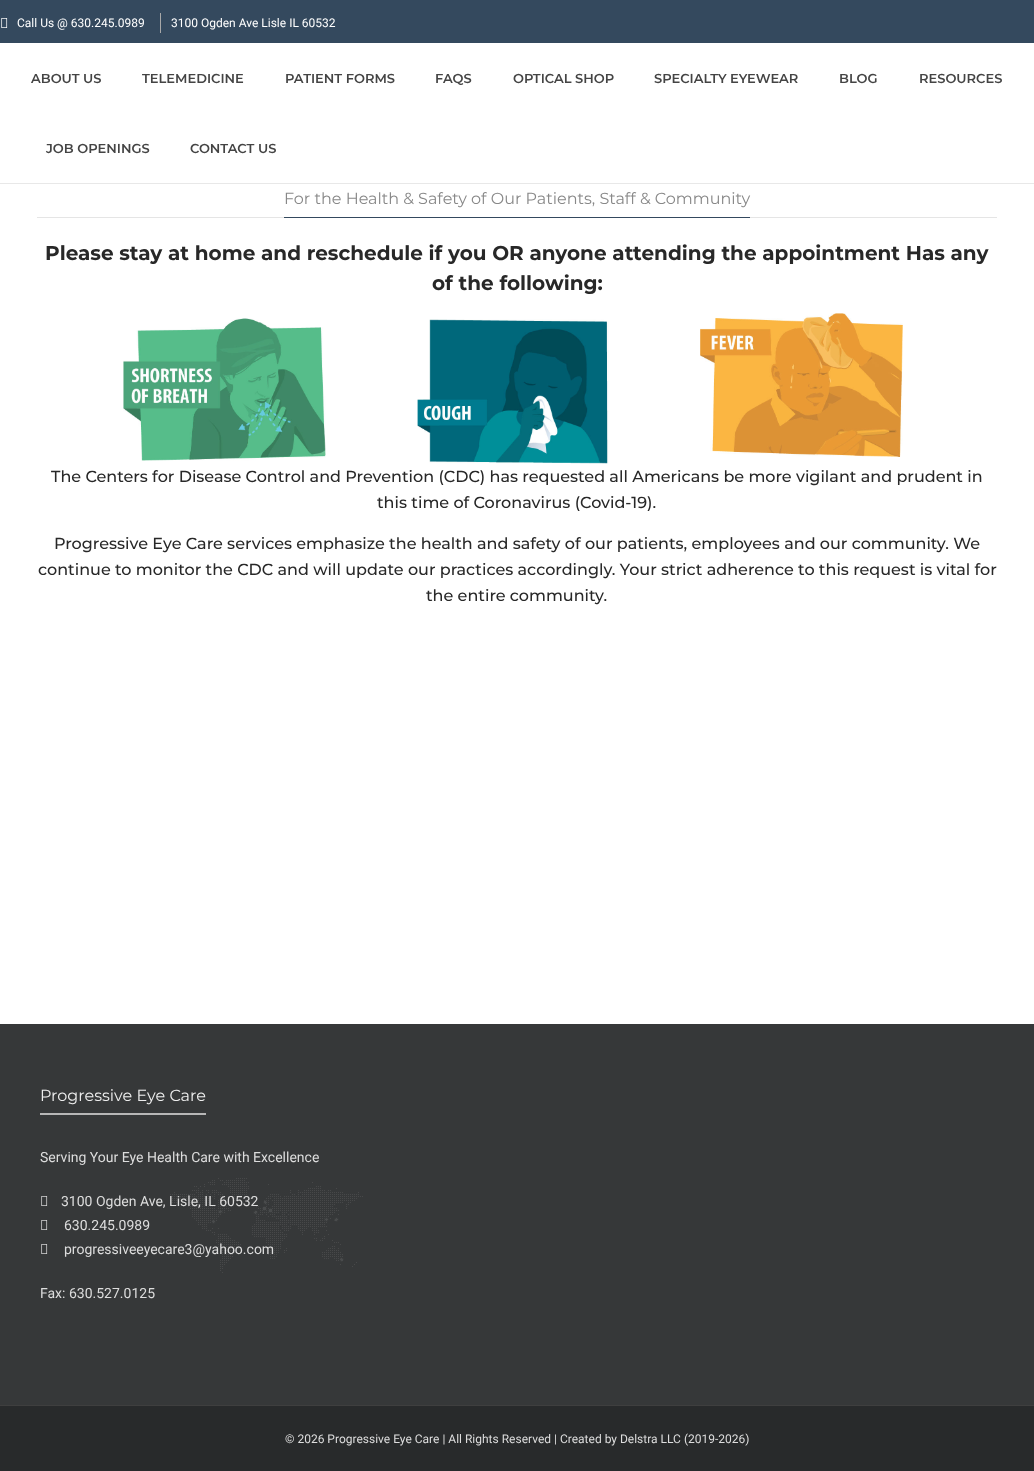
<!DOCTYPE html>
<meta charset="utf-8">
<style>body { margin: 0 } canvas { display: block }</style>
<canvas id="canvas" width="1034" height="1471"></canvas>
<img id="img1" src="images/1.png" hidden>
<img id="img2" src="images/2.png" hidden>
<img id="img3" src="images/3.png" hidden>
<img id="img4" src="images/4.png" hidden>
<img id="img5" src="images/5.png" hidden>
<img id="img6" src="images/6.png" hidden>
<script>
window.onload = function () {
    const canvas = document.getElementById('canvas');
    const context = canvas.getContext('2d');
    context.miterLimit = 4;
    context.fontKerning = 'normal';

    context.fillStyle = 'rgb(255, 255, 255)';
    context.fillRect(0, 0, 1034, 1471);
    context.fillStyle = 'rgb(52, 73, 94)';
    context.fillRect(0, 0, 1034, 43);
    context.drawImage(document.getElementById('img1'), 1, 18, 7, 10);
    context.fillStyle = 'rgb(168, 168, 168)';
    context.fillRect(160, 13, 1, 20);
    context.fillStyle = 'rgb(232, 232, 232)';
    context.fillRect(0, 183, 1034, 1);
    context.fillStyle = 'rgb(229, 229, 229)';
    context.fillRect(37, 217, 960, 1);
    context.fillStyle = 'rgb(52, 73, 94)';
    context.fillRect(284, 217, 466, 1);
    context.drawImage(document.getElementById('img2'), 123, 318, 203, 143);
    context.drawImage(document.getElementById('img3'), 417, 319, 192, 145);
    context.drawImage(document.getElementById('img4'), 700, 313, 203, 144);
    context.fillStyle = 'rgb(54, 56, 57)';
    context.fillRect(0, 1024, 1034, 381);
    context.fillStyle = 'rgb(63, 63, 63)';
    context.fillRect(0, 1405, 1034, 1);
    context.drawImage(document.getElementById('img5'), 170, 1178, 193, 95);
    context.fillStyle = 'rgb(183, 183, 183)';
    context.fillRect(40, 1113, 166, 2);
    context.drawImage(document.getElementById('img6'), 41, 1196, 7, 10);
    context.drawImage(document.getElementById('img6'), 41, 1220, 7, 10);
    context.drawImage(document.getElementById('img6'), 41, 1244, 7, 10);
    context.fillStyle = 'rgb(40, 42, 43)';
    context.fillRect(0, 1406, 1034, 65);
    context.font = '12px Roboto';
    context.fillStyle = 'rgb(255, 255, 255)';
    context.fillText('Call Us @ 630.245.0989', 17, 27);
    context.fillText('3100 Ogden Ave Lisle IL 60532', 171, 27);
    context.font = '600 13px Montserrat';
    context.fillStyle = 'rgb(68, 68, 68)';
    context.fillText('ABOUT US', 31, 83);
    context.fillText('TELEMEDICINE', 142, 83);
    context.fillText('PATIENT FORMS', 285, 83);
    context.fillText('FAQS', 435, 83);
    context.fillText('OPTICAL SHOP', 513, 83);
    context.fillText('SPECIALTY EYEWEAR', 654, 83);
    context.fillText('BLOG', 839, 83);
    context.fillText('RESOURCES', 919, 83);
    context.fillText('JOB OPENINGS', 46, 153);
    context.fillText('CONTACT US', 190, 153);
    context.font = '16px Montserrat';
    context.fillStyle = 'rgb(136, 136, 136)';
    context.fillText('For the Health & Safety of Our Patients, Staff & Community', 284, 204);
    context.font = 'bold 20px Montserrat';
    context.fillStyle = 'rgb(40, 40, 40)';
    context.fillText('Please stay at home and reschedule if you OR anyone attending the appointment Has any', 45, 260);
    context.fillText('of the following:', 432, 290);
    context.font = '500 16px Montserrat';
    context.fillText('The Centers for Disease Control and Prevention (CDC) has requested all Americans be more vigilant and prudent in', 51, 482);
    context.fillText('this time of Coronavirus (Covid-19).', 377, 508);
    context.fillText('Progressive Eye Care services emphasize the health and safety of our patients, employees and our community. We', 54, 549);
    context.fillText('continue to monitor the CDC and will update our practices accordingly. Your strict adherence to this request is vital for', 38, 575);
    context.fillText('the entire community.', 426, 601);
    context.font = '16px Montserrat';
    context.fillStyle = 'rgb(238, 238, 238)';
    context.fillText('Progressive Eye Care', 40, 1101);
    context.font = '14px Roboto';
    context.fillStyle = 'rgb(221, 221, 221)';
    context.fillText('Serving Your Eye Health Care with Excellence', 40, 1162);
    context.fillText('3100 Ogden Ave, Lisle, IL 60532', 61, 1206);
    context.fillText('630.245.0989', 64, 1230);
    context.fillText('progressiveeyecare3@yahoo.com', 64, 1254);
    context.fillText('Fax: 630.527.0125', 40, 1298);
    context.font = '12px Roboto';
    context.fillText('© 2026 Progressive Eye Care | All Rights Reserved | Created by Delstra LLC (2019-2026)', 285, 1443);
};
</script>
